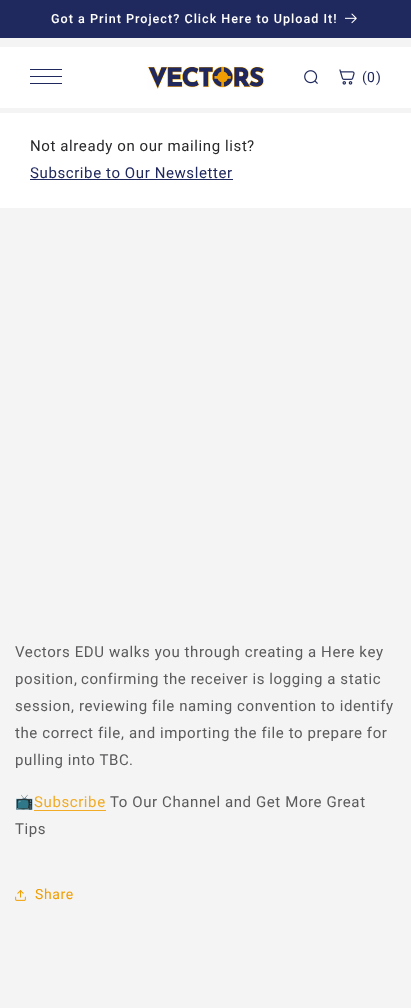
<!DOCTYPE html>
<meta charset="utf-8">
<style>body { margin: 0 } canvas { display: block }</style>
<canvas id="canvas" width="411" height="1008"></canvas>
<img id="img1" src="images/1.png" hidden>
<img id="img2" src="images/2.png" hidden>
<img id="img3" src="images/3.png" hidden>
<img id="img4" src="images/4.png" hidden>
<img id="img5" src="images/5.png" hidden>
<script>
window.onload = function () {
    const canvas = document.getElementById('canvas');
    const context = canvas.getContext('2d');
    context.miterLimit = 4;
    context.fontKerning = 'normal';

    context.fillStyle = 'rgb(244, 244, 244)';
    context.fillRect(0, 0, 411, 1008);
    context.fillStyle = 'rgb(32, 41, 93)';
    context.fillRect(0, 0, 411, 38);
    context.drawImage(document.getElementById('img1'), 345, 13, 12, 11);
    context.fillStyle = 'rgb(255, 255, 255)';
    context.fillRect(0, 47, 411, 61);
    context.fillStyle = 'rgb(32, 41, 93)';
    context.fillRect(30, 76, 32, 1);
    context.fillRect(30, 69, 32, 1);
    context.fillRect(30, 83, 32, 1);
    context.drawImage(document.getElementById('img2'), 147, 65, 117, 25);
    context.drawImage(document.getElementById('img3'), 304, 70, 14, 14);
    context.drawImage(document.getElementById('img4'), 339, 69, 16, 16);
    context.fillStyle = 'rgb(255, 255, 255)';
    context.fillRect(0, 113, 411, 95);
    context.fillStyle = 'rgb(32, 41, 93)';
    context.fillRect(30, 179, 203, 1);
    context.fillStyle = 'rgb(241, 171, 37)';
    context.fillRect(34, 810, 72, 1);
    context.drawImage(document.getElementById('img5'), 15, 890, 11, 11);
    context.letterSpacing = '1px';
    context.font = '500 12.6px Roboto';
    context.fillStyle = 'rgb(255, 255, 255)';
    context.fillText('Got a Print Project? Click Here to Upload It!', 51, 23);
    context.letterSpacing = '0.6px';
    context.font = '14px "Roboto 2"';
    context.fillStyle = 'rgb(32, 41, 93)';
    context.fillText('(', 362, 82);
    context.font = '14px Roboto';
    context.fillText('0', 367, 82);
    context.font = '14px "Roboto 2"';
    context.fillText(')', 376, 82);
    context.font = '15px Roboto';
    context.fillStyle = 'rgb(40, 40, 43)';
    context.fillText('Not already on our mailing list', 30, 151);
    context.font = '15px "Roboto 2"';
    context.fillText('?', 247, 151);
    context.font = '15px Roboto';
    context.fillStyle = 'rgb(32, 41, 93)';
    context.fillText('Subscribe to Our Newsletter', 30, 178);
    context.fillStyle = 'rgb(91, 91, 93)';
    context.fillText('Vectors EDU walks you through creating a Here key', 15, 657);
    context.fillText('position', 15, 684);
    context.font = '15px "Roboto 2"';
    context.fillText(',', 74, 684);
    context.font = '15px Roboto';
    context.fillText('confirming the receiver is logging a static', 81, 684);
    context.fillText('session', 15, 711);
    context.font = '15px "Roboto 2"';
    context.fillText(',', 71, 711);
    context.font = '15px Roboto';
    context.fillText('reviewing file naming convention to identify', 79, 711);
    context.fillText('the correct file', 15, 738);
    context.font = '15px "Roboto 2"';
    context.fillText(',', 121, 738);
    context.font = '15px Roboto';
    context.fillText('and importing the file to prepare for', 129, 738);
    context.fillText('pulling into TBC', 15, 765);
    context.font = '15px "Roboto 2"';
    context.fillText('.', 129, 765);
    context.font = '15px Noto Color Emoji';
    context.fillText('📺', 15, 807);
    context.font = '15px Roboto';
    context.fillStyle = 'rgb(241, 171, 37)';
    context.fillText('Subscribe', 34, 807);
    context.fillStyle = 'rgb(91, 91, 93)';
    context.fillText('To Our Channel and Get More Great', 110, 807);
    context.fillText('Tips', 15, 834);
    context.font = '14px Roboto';
    context.fillStyle = 'rgb(240, 158, 1)';
    context.fillText('Share', 35, 899);
};
</script>
